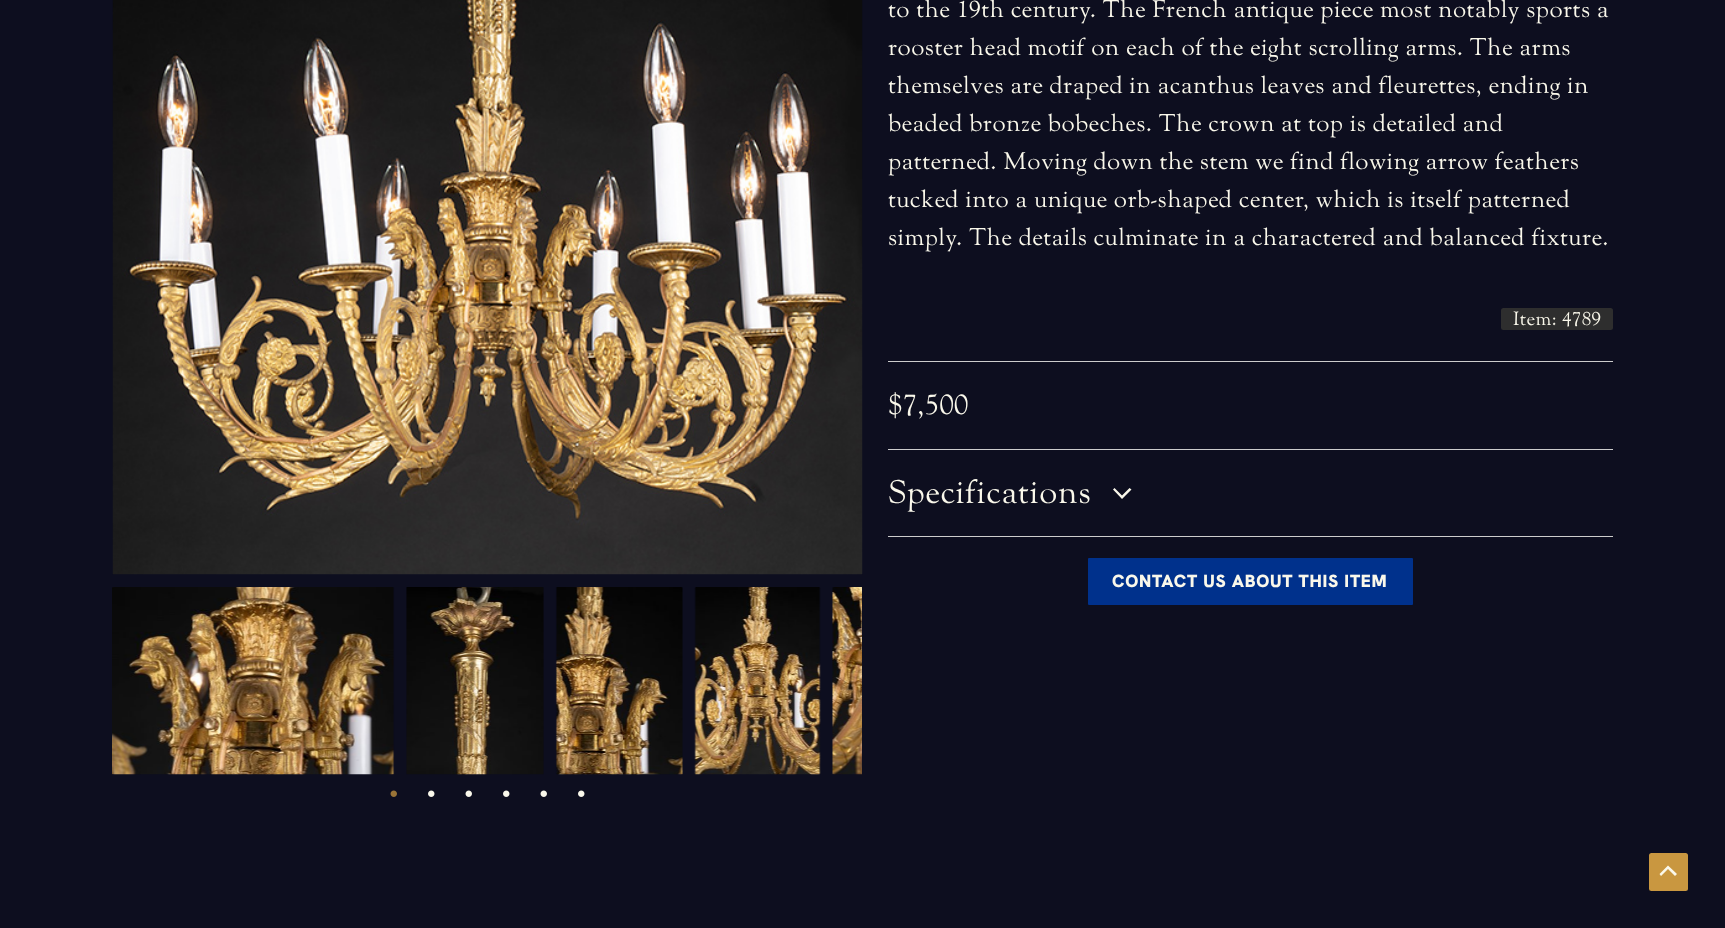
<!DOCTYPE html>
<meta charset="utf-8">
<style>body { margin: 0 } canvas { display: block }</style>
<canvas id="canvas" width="1725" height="928"></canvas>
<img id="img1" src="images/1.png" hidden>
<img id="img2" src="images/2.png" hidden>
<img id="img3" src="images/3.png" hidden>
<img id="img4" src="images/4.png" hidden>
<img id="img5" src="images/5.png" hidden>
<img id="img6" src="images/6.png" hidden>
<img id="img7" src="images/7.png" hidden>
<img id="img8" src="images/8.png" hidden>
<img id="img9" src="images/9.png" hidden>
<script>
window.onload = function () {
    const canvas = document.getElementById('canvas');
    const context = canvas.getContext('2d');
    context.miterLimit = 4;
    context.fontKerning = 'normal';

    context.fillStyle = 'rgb(13, 14, 31)';
    context.fillRect(0, 0, 1725, 928);
    context.drawImage(document.getElementById('img1'), 112, 0, 751, 575);
    context.drawImage(document.getElementById('img2'), 112, 587, 283, 188);
    context.drawImage(document.getElementById('img3'), 406, 587, 138, 188);
    context.drawImage(document.getElementById('img4'), 555, 587, 128, 188);
    context.drawImage(document.getElementById('img5'), 694, 587, 127, 188);
    context.drawImage(document.getElementById('img6'), 832, 587, 30, 188);
    context.drawImage(document.getElementById('img7'), 390, 790, 7, 7);
    context.drawImage(document.getElementById('img8'), 428, 790, 7, 7);
    context.drawImage(document.getElementById('img9'), 465, 790, 7, 7);
    context.drawImage(document.getElementById('img8'), 503, 790, 7, 7);
    context.drawImage(document.getElementById('img9'), 540, 790, 7, 7);
    context.drawImage(document.getElementById('img8'), 578, 790, 7, 7);
    context.fillStyle = 'rgb(46, 46, 46)';
    context.beginPath();
    context.roundRect(1501, 308, 112, 22, 2.5);
    context.fill();
    context.fillStyle = 'rgb(204, 204, 204)';
    context.fillRect(888, 361, 725, 1);
    context.fillRect(888, 449, 725, 1);
    context.fillStyle = 'rgb(250, 248, 235)';
    context.beginPath();
    context.moveTo(1113, 489.5);
    context.lineTo(1122, 499);
    context.lineTo(1131.5, 489.5);
    context.lineTo(1129.5, 488);
    context.lineTo(1122, 495.5);
    context.lineTo(1114.5, 488);
    context.closePath();
    context.fill();
    context.fillStyle = 'rgb(204, 204, 204)';
    context.fillRect(888, 536, 725, 1);
    context.fillStyle = 'rgb(0, 49, 140)';
    context.beginPath();
    context.roundRect(1088, 558, 325, 47, 1);
    context.fill();
    context.fillStyle = 'rgb(201, 151, 64)';
    context.beginPath();
    context.roundRect(1649, 853, 39, 38, 2.5);
    context.fill();
    context.fillStyle = 'rgb(250, 248, 235)';
    context.beginPath();
    context.moveTo(1677, 874);
    context.lineTo(1668, 865.5);
    context.lineTo(1659.5, 874);
    context.lineTo(1661, 876);
    context.lineTo(1668, 869);
    context.lineTo(1675, 876);
    context.closePath();
    context.fill();
    context.letterSpacing = '0.38px';
    context.font = '23.75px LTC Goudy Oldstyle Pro';
    context.fillText('to the 19th century. The French antique piece most notably sports a', 888, 17);
    context.fillText('rooster head motif on each of the eight scrolling arms. The arms', 888, 55);
    context.fillText('themselves are draped in acanthus leaves and fleurettes, ending in', 888, 93);
    context.fillText('beaded bronze bobeches. The crown at top is detailed and', 888, 131);
    context.fillText('patterned. Moving down the stem we find flowing arrow feathers', 888, 169);
    context.fillText('tucked into a unique orb-shaped center, which is itself patterned', 888, 207);
    context.fillText('simply. The details culminate in a charactered and balanced fixture.', 888, 245);
    context.font = '19px LTC Goudy Oldstyle Pro';
    context.fillText('Item: 4789', 1513, 325);
    context.font = '28.5px LTC Goudy Oldstyle Pro';
    context.fillText('$7,500', 888, 414);
    context.letterSpacing = '0.6px';
    context.font = '32.5px LTC Goudy Oldstyle Pro';
    context.fillText('Specifications', 888, 503);
    context.letterSpacing = '0.75px';
    context.font = '900 17.5px Hanken Grotesk';
    context.fillText('CONTACT US ABOUT THIS ITEM', 1112, 587);
};
</script>
